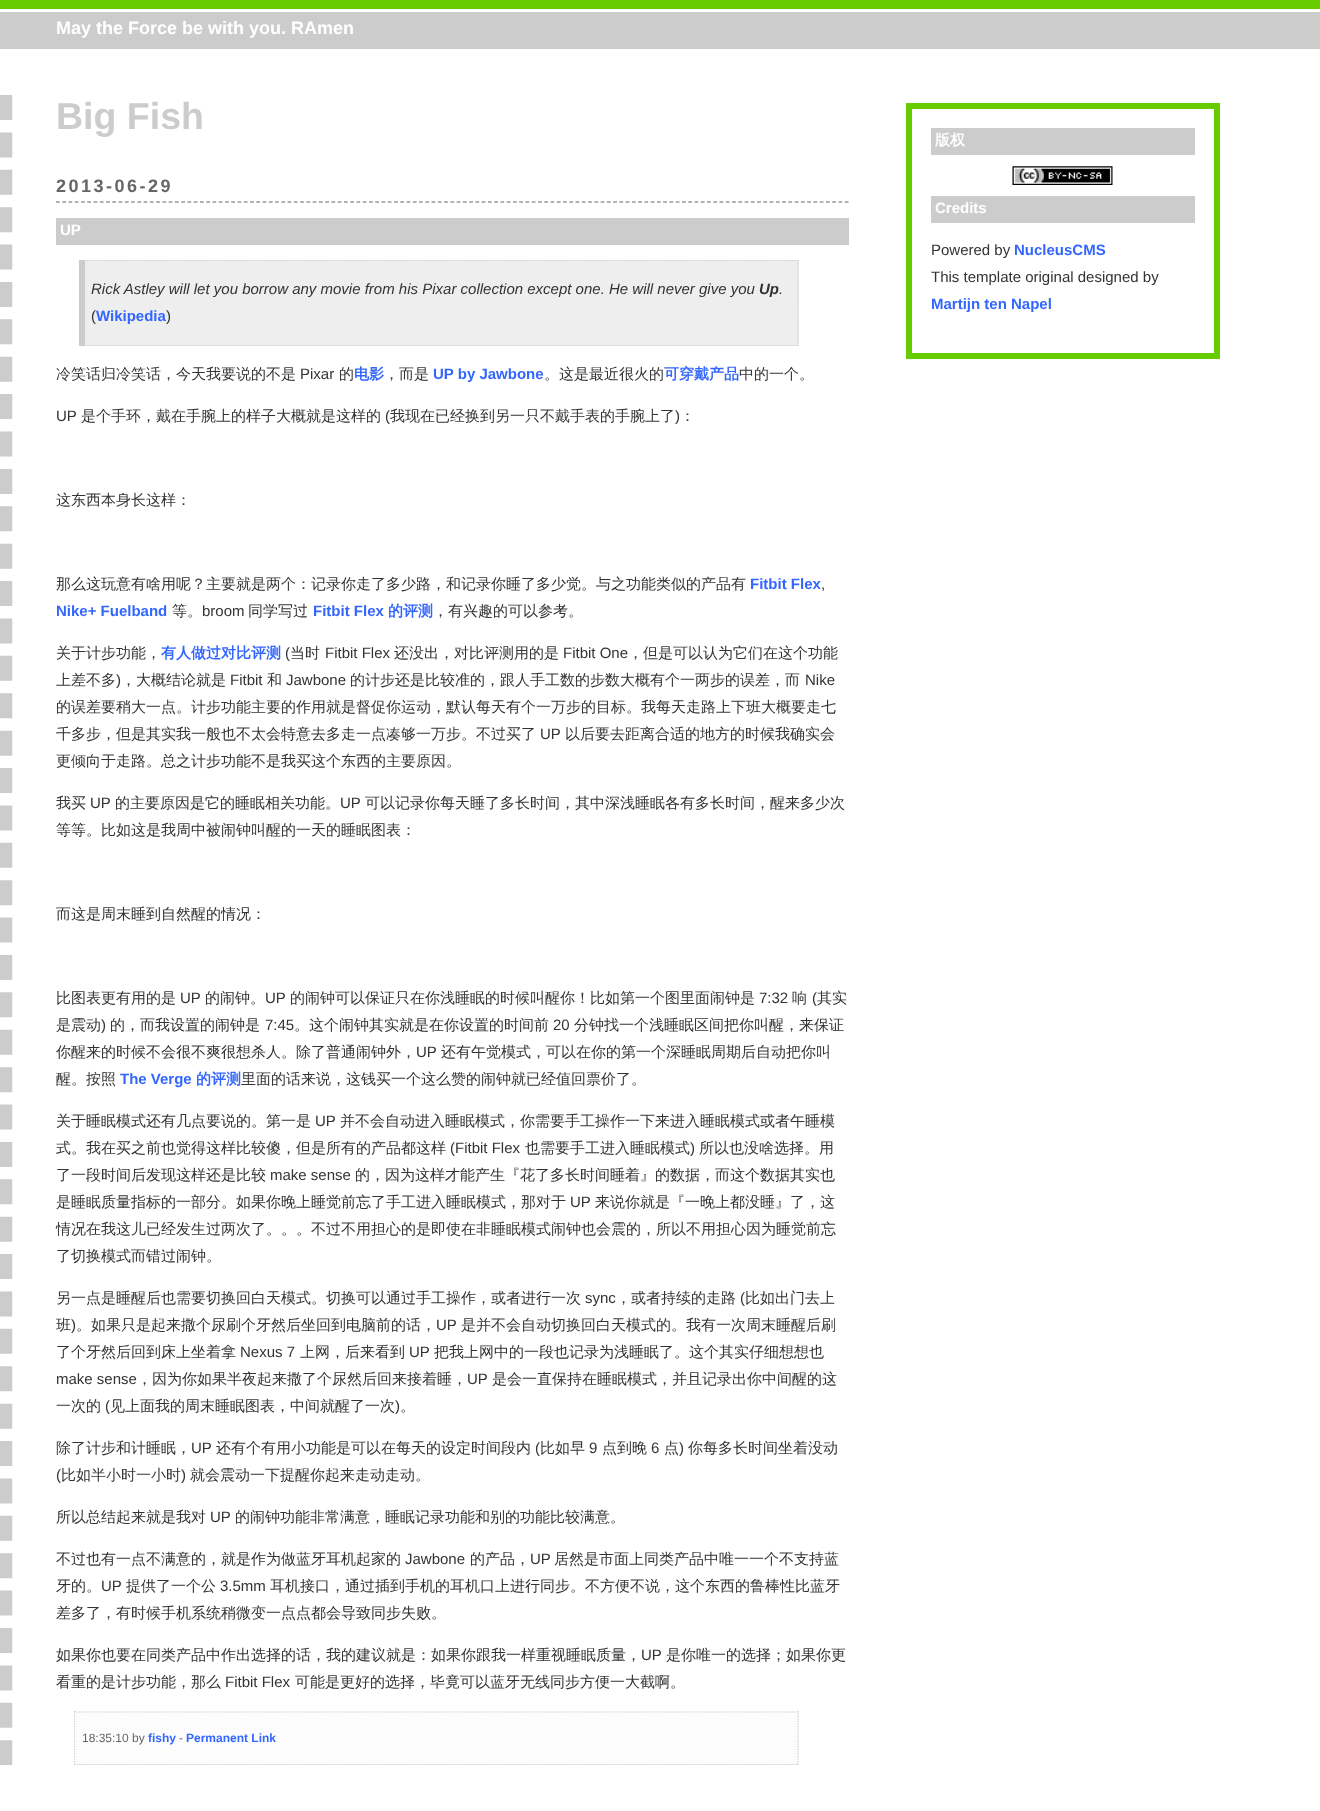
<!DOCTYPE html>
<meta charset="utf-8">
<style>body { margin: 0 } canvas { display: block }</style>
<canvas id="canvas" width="1320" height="1811"></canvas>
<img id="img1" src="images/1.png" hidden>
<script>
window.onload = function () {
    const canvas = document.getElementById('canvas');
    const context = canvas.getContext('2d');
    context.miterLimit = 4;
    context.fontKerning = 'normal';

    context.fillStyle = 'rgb(255, 255, 255)';
    context.fillRect(0, 0, 1320, 1811);
    context.fillStyle = 'rgb(102, 204, 0)';
    context.fillRect(0, 0, 1320, 9);
    context.fillStyle = 'rgb(204, 204, 204)';
    context.fillRect(0, 12, 1320, 37);
    context.beginPath();
    context.moveTo(6, 95);
    context.lineTo(6, 1765);
    context.strokeStyle = 'rgb(204, 204, 204)';
    context.lineWidth = 12.5;
    context.setLineDash([25, 12.39]);
    context.stroke();
    context.beginPath();
    context.moveTo(56, 202);
    context.lineTo(849, 202);
    context.strokeStyle = 'rgb(102, 102, 102)';
    context.lineWidth = 1.2;
    context.setLineDash([3.75, 2.51]);
    context.stroke();
    context.fillRect(56, 218, 793, 27);
    context.fillStyle = 'rgb(238, 238, 238)';
    context.fillRect(85, 260, 714, 86);
    context.beginPath();
    context.moveTo(79, 260.5);
    context.lineTo(799, 260.5);
    context.strokeStyle = 'rgb(204, 204, 204)';
    context.setLineDash([1.25, 1.25]);
    context.stroke();
    context.beginPath();
    context.moveTo(798, 260);
    context.lineTo(798, 346);
    context.stroke();
    context.beginPath();
    context.moveTo(79, 345.5);
    context.lineTo(799, 345.5);
    context.stroke();
    context.fillStyle = 'rgb(204, 204, 204)';
    context.fillRect(79, 260, 6, 86);
    context.fillStyle = 'rgb(252, 252, 252)';
    context.fillRect(74, 1711, 725, 54);
    context.beginPath();
    context.moveTo(74, 1712);
    context.lineTo(799, 1712);
    context.stroke();
    context.beginPath();
    context.moveTo(798, 1711);
    context.lineTo(798, 1765);
    context.stroke();
    context.beginPath();
    context.moveTo(74, 1764.5);
    context.lineTo(799, 1764.5);
    context.stroke();
    context.beginPath();
    context.moveTo(74.5, 1711);
    context.lineTo(74.5, 1765);
    context.stroke();
    context.strokeStyle = 'rgb(102, 204, 0)';
    context.lineWidth = 6;
    context.setLineDash([]);
    context.strokeRect(909, 106, 308, 250);
    context.fillStyle = 'rgb(204, 204, 204)';
    context.fillRect(931, 128, 264, 27);
    context.drawImage(document.getElementById('img1'), 1012, 166, 101, 19);
    context.fillRect(931, 196, 264, 27);
    context.font = 'bold 18px Liberation Sans';
    context.fillStyle = 'rgb(255, 255, 255)';
    context.fillText('May the Force be with you. RAmen', 56, 34);
    context.font = 'bold 37.5px Liberation Sans';
    context.fillStyle = 'rgb(204, 204, 204)';
    context.fillText('Big Fish', 56, 129);
    context.letterSpacing = '2.5px';
    context.font = 'bold 18px Liberation Sans';
    context.fillStyle = 'rgb(102, 102, 102)';
    context.fillText('2013-06-29', 56, 192);
    context.letterSpacing = '0px';
    context.font = 'bold 15px Liberation Sans';
    context.fillStyle = 'rgb(255, 255, 255)';
    context.fillText('UP', 60, 235);
    context.font = 'italic 15px Liberation Sans';
    context.fillStyle = 'rgb(51, 51, 51)';
    context.fillText('Rick Astley will let you borrow any movie from his Pixar collection except one. He will never give you', 91, 294);
    context.font = 'italic bold 15px Liberation Sans';
    context.fillText('Up', 759, 294);
    context.font = 'italic 15px Liberation Sans';
    context.fillText('.', 779, 294);
    context.font = '15px Liberation Sans';
    context.fillText('(', 91, 321);
    context.font = 'bold 15px Liberation Sans';
    context.fillStyle = 'rgb(51, 102, 255)';
    context.fillText('Wikipedia', 96, 321);
    context.font = '15px Liberation Sans';
    context.fillStyle = 'rgb(51, 51, 51)';
    context.fillText(')', 166, 321);
    context.font = '500 15px WenQuanYi Zen Hei';
    context.fillText('冷笑话归冷笑话，今天我要说的不是', 56, 379);
    context.font = '15px Liberation Sans';
    context.fillText('Pixar', 300, 379);
    context.font = '500 15px WenQuanYi Zen Hei';
    context.fillText('的', 339, 379);
    context.font = 'bold 15px WenQuanYi Zen Hei';
    context.fillStyle = 'rgb(51, 102, 255)';
    context.fillText('电影', 354, 379);
    context.font = '500 15px WenQuanYi Zen Hei';
    context.fillStyle = 'rgb(51, 51, 51)';
    context.fillText('，而是', 384, 379);
    context.font = 'bold 15px Liberation Sans';
    context.fillStyle = 'rgb(51, 102, 255)';
    context.fillText('UP by Jawbone', 433, 379);
    context.font = '500 15px WenQuanYi Zen Hei';
    context.fillStyle = 'rgb(51, 51, 51)';
    context.fillText('。这是最近很火的', 544, 379);
    context.font = 'bold 15px WenQuanYi Zen Hei';
    context.fillStyle = 'rgb(51, 102, 255)';
    context.fillText('可穿戴产品', 664, 379);
    context.font = '500 15px WenQuanYi Zen Hei';
    context.fillStyle = 'rgb(51, 51, 51)';
    context.fillText('中的一个。', 739, 379);
    context.font = '15px Liberation Sans';
    context.fillText('UP', 56, 421);
    context.font = '500 15px WenQuanYi Zen Hei';
    context.fillText('是个手环，戴在手腕上的样子大概就是这样的', 81, 421);
    context.font = '15px Liberation Sans';
    context.fillText('(', 385, 421);
    context.font = '500 15px WenQuanYi Zen Hei';
    context.fillText('我现在已经换到另一只不戴手表的手腕上了', 390, 421);
    context.font = '15px Liberation Sans';
    context.fillText(')', 675, 421);
    context.font = '500 15px WenQuanYi Zen Hei';
    context.fillText('：', 680, 421);
    context.fillText('这东西本身长这样：', 56, 505);
    context.fillText('那么这玩意有啥用呢？主要就是两个：记录你走了多少路，和记录你睡了多少觉。与之功能类似的产品有', 56, 589);
    context.font = 'bold 15px Liberation Sans';
    context.fillStyle = 'rgb(51, 102, 255)';
    context.fillText('Fitbit Flex', 750, 589);
    context.font = '15px Liberation Sans';
    context.fillStyle = 'rgb(51, 51, 51)';
    context.fillText(',', 821, 589);
    context.font = 'bold 15px Liberation Sans';
    context.fillStyle = 'rgb(51, 102, 255)';
    context.fillText('Nike+ Fuelband', 56, 616);
    context.font = '500 15px WenQuanYi Zen Hei';
    context.fillStyle = 'rgb(51, 51, 51)';
    context.fillText('等。', 172, 616);
    context.font = '15px Liberation Sans';
    context.fillText('broom', 202, 616);
    context.font = '500 15px WenQuanYi Zen Hei';
    context.fillText('同学写过', 248, 616);
    context.font = 'bold 15px Liberation Sans';
    context.fillStyle = 'rgb(51, 102, 255)';
    context.fillText('Fitbit Flex', 313, 616);
    context.font = 'bold 15px WenQuanYi Zen Hei';
    context.fillText('的评测', 388, 616);
    context.font = '500 15px WenQuanYi Zen Hei';
    context.fillStyle = 'rgb(51, 51, 51)';
    context.fillText('，有兴趣的可以参考。', 433, 616);
    context.fillText('关于计步功能，', 56, 658);
    context.font = 'bold 15px WenQuanYi Zen Hei';
    context.fillStyle = 'rgb(51, 102, 255)';
    context.fillText('有人做过对比评测', 161, 658);
    context.font = '15px Liberation Sans';
    context.fillStyle = 'rgb(51, 51, 51)';
    context.fillText('(', 285, 658);
    context.font = '500 15px WenQuanYi Zen Hei';
    context.fillText('当时', 290, 658);
    context.font = '15px Liberation Sans';
    context.fillText('Fitbit Flex', 325, 658);
    context.font = '500 15px WenQuanYi Zen Hei';
    context.fillText('还没出，对比评测用的是', 394, 658);
    context.font = '15px Liberation Sans';
    context.fillText('Fitbit One', 563, 658);
    context.font = '500 15px WenQuanYi Zen Hei';
    context.fillText('，但是可以认为它们在这个功能', 628, 658);
    context.fillText('上差不多', 56, 685);
    context.font = '15px Liberation Sans';
    context.fillText(')', 116, 685);
    context.font = '500 15px WenQuanYi Zen Hei';
    context.fillText('，大概结论就是', 121, 685);
    context.font = '15px Liberation Sans';
    context.fillText('Fitbit', 230, 685);
    context.font = '500 15px WenQuanYi Zen Hei';
    context.fillText('和', 267, 685);
    context.font = '15px Liberation Sans';
    context.fillText('Jawbone', 286, 685);
    context.font = '500 15px WenQuanYi Zen Hei';
    context.fillText('的计步还是比较准的，跟人手工数的步数大概有个一两步的误差，而', 350, 685);
    context.font = '15px Liberation Sans';
    context.fillText('Nike', 805, 685);
    context.font = '500 15px WenQuanYi Zen Hei';
    context.fillText('的误差要稍大一点。计步功能主要的作用就是督促你运动，默认每天有个一万步的目标。我每天走路上下班大概要走七', 56, 712);
    context.fillText('千多步，但是其实我一般也不太会特意去多走一点凑够一万步。不过买了', 56, 739);
    context.font = '15px Liberation Sans';
    context.fillText('UP', 540, 739);
    context.font = '500 15px WenQuanYi Zen Hei';
    context.fillText('以后要去距离合适的地方的时候我确实会', 565, 739);
    context.fillText('更倾向于走路。总之计步功能不是我买这个东西的主要原因。', 56, 766);
    context.fillText('我买', 56, 808);
    context.font = '15px Liberation Sans';
    context.fillText('UP', 90, 808);
    context.font = '500 15px WenQuanYi Zen Hei';
    context.fillText('的主要原因是它的睡眠相关功能。', 115, 808);
    context.font = '15px Liberation Sans';
    context.fillText('UP', 340, 808);
    context.font = '500 15px WenQuanYi Zen Hei';
    context.fillText('可以记录你每天睡了多长时间，其中深浅睡眠各有多长时间，醒来多少次', 365, 808);
    context.fillText('等等。比如这是我周中被闹钟叫醒的一天的睡眠图表：', 56, 835);
    context.fillText('而这是周末睡到自然醒的情况：', 56, 919);
    context.fillText('比图表更有用的是', 56, 1003);
    context.font = '15px Liberation Sans';
    context.fillText('UP', 180, 1003);
    context.font = '500 15px WenQuanYi Zen Hei';
    context.fillText('的闹钟。', 205, 1003);
    context.font = '15px Liberation Sans';
    context.fillText('UP', 265, 1003);
    context.font = '500 15px WenQuanYi Zen Hei';
    context.fillText('的闹钟可以保证只在你浅睡眠的时候叫醒你！比如第一个图里面闹钟是', 290, 1003);
    context.font = '15px Liberation Sans';
    context.fillText('7:32', 759, 1003);
    context.font = '500 15px WenQuanYi Zen Hei';
    context.fillText('响', 792, 1003);
    context.font = '15px Liberation Sans';
    context.fillText('(', 812, 1003);
    context.font = '500 15px WenQuanYi Zen Hei';
    context.fillText('其实', 817, 1003);
    context.fillText('是震动', 56, 1030);
    context.font = '15px Liberation Sans';
    context.fillText(')', 101, 1030);
    context.font = '500 15px WenQuanYi Zen Hei';
    context.fillText('的，而我设置的闹钟是', 110, 1030);
    context.font = '15px Liberation Sans';
    context.fillText('7:45', 265, 1030);
    context.font = '500 15px WenQuanYi Zen Hei';
    context.fillText('。这个闹钟其实就是在你设置的时间前', 294, 1030);
    context.font = '15px Liberation Sans';
    context.fillText('20', 553, 1030);
    context.font = '500 15px WenQuanYi Zen Hei';
    context.fillText('分钟找一个浅睡眠区间把你叫醒，来保证', 574, 1030);
    context.fillText('你醒来的时候不会很不爽很想杀人。除了普通闹钟外，', 56, 1057);
    context.font = '15px Liberation Sans';
    context.fillText('UP', 416, 1057);
    context.font = '500 15px WenQuanYi Zen Hei';
    context.fillText('还有午觉模式，可以在你的第一个深睡眠周期后自动把你叫', 441, 1057);
    context.fillText('醒。按照', 56, 1084);
    context.font = 'bold 15px Liberation Sans';
    context.fillStyle = 'rgb(51, 102, 255)';
    context.fillText('The Verge', 120, 1084);
    context.font = 'bold 15px WenQuanYi Zen Hei';
    context.fillText('的评测', 196, 1084);
    context.font = '500 15px WenQuanYi Zen Hei';
    context.fillStyle = 'rgb(51, 51, 51)';
    context.fillText('里面的话来说，这钱买一个这么赞的闹钟就已经值回票价了。', 241, 1084);
    context.fillText('关于睡眠模式还有几点要说的。第一是', 56, 1126);
    context.font = '15px Liberation Sans';
    context.fillText('UP', 315, 1126);
    context.font = '500 15px WenQuanYi Zen Hei';
    context.fillText('并不会自动进入睡眠模式，你需要手工操作一下来进入睡眠模式或者午睡模', 340, 1126);
    context.fillText('式。我在买之前也觉得这样比较傻，但是所有的产品都这样', 56, 1153);
    context.font = '15px Liberation Sans';
    context.fillText('(Fitbit Flex', 450, 1153);
    context.font = '500 15px WenQuanYi Zen Hei';
    context.fillText('也需要手工进入睡眠模式', 525, 1153);
    context.font = '15px Liberation Sans';
    context.fillText(')', 690, 1153);
    context.font = '500 15px WenQuanYi Zen Hei';
    context.fillText('所以也没啥选择。用', 699, 1153);
    context.fillText('了一段时间后发现这样还是比较', 56, 1180);
    context.font = '15px Liberation Sans';
    context.fillText('make sense', 270, 1180);
    context.font = '500 15px WenQuanYi Zen Hei';
    context.fillText('的，因为这样才能产生『花了多长时间睡着』的数据，而这个数据其实也', 355, 1180);
    context.fillText('是睡眠质量指标的一部分。如果你晚上睡觉前忘了手工进入睡眠模式，那对于', 56, 1207);
    context.font = '15px Liberation Sans';
    context.fillText('UP', 570, 1207);
    context.font = '500 15px WenQuanYi Zen Hei';
    context.fillText('来说你就是『一晚上都没睡』了，这', 595, 1207);
    context.fillText('情况在我这儿已经发生过两次了。。。不过不用担心的是即使在非睡眠模式闹钟也会震的，所以不用担心因为睡觉前忘', 56, 1234);
    context.fillText('了切换模式而错过闹钟。', 56, 1261);
    context.fillText('另一点是睡醒后也需要切换回白天模式。切换可以通过手工操作，或者进行一次', 56, 1303);
    context.font = '15px Liberation Sans';
    context.fillText('sync', 585, 1303);
    context.font = '500 15px WenQuanYi Zen Hei';
    context.fillText('，或者持续的走路', 616, 1303);
    context.font = '15px Liberation Sans';
    context.fillText('(', 740, 1303);
    context.font = '500 15px WenQuanYi Zen Hei';
    context.fillText('比如出门去上', 745, 1303);
    context.fillText('班', 56, 1330);
    context.font = '15px Liberation Sans';
    context.fillText(')', 71, 1330);
    context.font = '500 15px WenQuanYi Zen Hei';
    context.fillText('。如果只是起来撒个尿刷个牙然后坐回到电脑前的话，', 76, 1330);
    context.font = '15px Liberation Sans';
    context.fillText('UP', 436, 1330);
    context.font = '500 15px WenQuanYi Zen Hei';
    context.fillText('是并不会自动切换回白天模式的。我有一次周末睡醒后刷', 461, 1330);
    context.fillText('了个牙然后回到床上坐着拿', 56, 1357);
    context.font = '15px Liberation Sans';
    context.fillText('Nexus 7', 240, 1357);
    context.font = '500 15px WenQuanYi Zen Hei';
    context.fillText('上网，后来看到', 300, 1357);
    context.font = '15px Liberation Sans';
    context.fillText('UP', 409, 1357);
    context.font = '500 15px WenQuanYi Zen Hei';
    context.fillText('把我上网中的一段也记录为浅睡眠了。这个其实仔细想想也', 434, 1357);
    context.font = '15px Liberation Sans';
    context.fillText('make sense', 56, 1384);
    context.font = '500 15px WenQuanYi Zen Hei';
    context.fillText('，因为你如果半夜起来撒了个尿然后回来接着睡，', 137, 1384);
    context.font = '15px Liberation Sans';
    context.fillText('UP', 467, 1384);
    context.font = '500 15px WenQuanYi Zen Hei';
    context.fillText('是会一直保持在睡眠模式，并且记录出你中间醒的这', 492, 1384);
    context.fillText('一次的', 56, 1411);
    context.font = '15px Liberation Sans';
    context.fillText('(', 105, 1411);
    context.font = '500 15px WenQuanYi Zen Hei';
    context.fillText('见上面我的周末睡眠图表，中间就醒了一次', 110, 1411);
    context.font = '15px Liberation Sans';
    context.fillText(')', 395, 1411);
    context.font = '500 15px WenQuanYi Zen Hei';
    context.fillText('。', 400, 1411);
    context.fillText('除了计步和计睡眠，', 56, 1453);
    context.font = '15px Liberation Sans';
    context.fillText('UP', 191, 1453);
    context.font = '500 15px WenQuanYi Zen Hei';
    context.fillText('还有个有用小功能是可以在每天的设定时间段内', 216, 1453);
    context.font = '15px Liberation Sans';
    context.fillText('(', 535, 1453);
    context.font = '500 15px WenQuanYi Zen Hei';
    context.fillText('比如早', 540, 1453);
    context.font = '15px Liberation Sans';
    context.fillText('9', 589, 1453);
    context.font = '500 15px WenQuanYi Zen Hei';
    context.fillText('点到晚', 602, 1453);
    context.font = '15px Liberation Sans';
    context.fillText('6', 651, 1453);
    context.font = '500 15px WenQuanYi Zen Hei';
    context.fillText('点', 664, 1453);
    context.font = '15px Liberation Sans';
    context.fillText(')', 679, 1453);
    context.font = '500 15px WenQuanYi Zen Hei';
    context.fillText('你每多长时间坐着没动', 688, 1453);
    context.font = '15px Liberation Sans';
    context.fillText('(', 56, 1480);
    context.font = '500 15px WenQuanYi Zen Hei';
    context.fillText('比如半小时一小时', 61, 1480);
    context.font = '15px Liberation Sans';
    context.fillText(')', 181, 1480);
    context.font = '500 15px WenQuanYi Zen Hei';
    context.fillText('就会震动一下提醒你起来走动走动。', 190, 1480);
    context.fillText('所以总结起来就是我对', 56, 1522);
    context.font = '15px Liberation Sans';
    context.fillText('UP', 210, 1522);
    context.font = '500 15px WenQuanYi Zen Hei';
    context.fillText('的闹钟功能非常满意，睡眠记录功能和别的功能比较满意。', 235, 1522);
    context.fillText('不过也有一点不满意的，就是作为做蓝牙耳机起家的', 56, 1564);
    context.font = '15px Liberation Sans';
    context.fillText('Jawbone', 405, 1564);
    context.font = '500 15px WenQuanYi Zen Hei';
    context.fillText('的产品，', 470, 1564);
    context.font = '15px Liberation Sans';
    context.fillText('UP', 530, 1564);
    context.font = '500 15px WenQuanYi Zen Hei';
    context.fillText('居然是市面上同类产品中唯一一个不支持蓝', 554, 1564);
    context.fillText('牙的。', 56, 1591);
    context.font = '15px Liberation Sans';
    context.fillText('UP', 101, 1591);
    context.font = '500 15px WenQuanYi Zen Hei';
    context.fillText('提供了一个公', 126, 1591);
    context.font = '15px Liberation Sans';
    context.fillText('3.5mm', 220, 1591);
    context.font = '500 15px WenQuanYi Zen Hei';
    context.fillText('耳机接口，通过插到手机的耳机口上进行同步。不方便不说，这个东西的鲁棒性比蓝牙', 270, 1591);
    context.fillText('差多了，有时候手机系统稍微变一点点都会导致同步失败。', 56, 1618);
    context.fillText('如果你也要在同类产品中作出选择的话，我的建议就是：如果你跟我一样重视睡眠质量，', 56, 1660);
    context.font = '15px Liberation Sans';
    context.fillText('UP', 641, 1660);
    context.font = '500 15px WenQuanYi Zen Hei';
    context.fillText('是你唯一的选择；如果你更', 666, 1660);
    context.fillText('看重的是计步功能，那么', 56, 1687);
    context.font = '15px Liberation Sans';
    context.fillText('Fitbit Flex', 225, 1687);
    context.font = '500 15px WenQuanYi Zen Hei';
    context.fillText('可能是更好的选择，毕竟可以蓝牙无线同步方便一大截啊。', 295, 1687);
    context.font = '12px Liberation Sans';
    context.fillStyle = 'rgb(102, 102, 102)';
    context.fillText('18:35:10 by', 82, 1742);
    context.font = 'bold 12px Liberation Sans';
    context.fillStyle = 'rgb(51, 102, 255)';
    context.fillText('fishy', 148, 1742);
    context.font = '12px Liberation Sans';
    context.fillStyle = 'rgb(102, 102, 102)';
    context.fillText('-', 179, 1742);
    context.font = 'bold 12px Liberation Sans';
    context.fillStyle = 'rgb(51, 102, 255)';
    context.fillText('Permanent Link', 186, 1742);
    context.font = 'bold 15px WenQuanYi Zen Hei';
    context.fillStyle = 'rgb(255, 255, 255)';
    context.fillText('版权', 935, 145);
    context.font = 'bold 15px Liberation Sans';
    context.fillText('Credits', 935, 213);
    context.font = '15px Liberation Sans';
    context.fillStyle = 'rgb(51, 51, 51)';
    context.fillText('Powered by', 931, 255);
    context.font = 'bold 15px Liberation Sans';
    context.fillStyle = 'rgb(51, 102, 255)';
    context.fillText('NucleusCMS', 1014, 255);
    context.font = '15px Liberation Sans';
    context.fillStyle = 'rgb(51, 51, 51)';
    context.fillText('This template original designed by', 931, 282);
    context.font = 'bold 15px Liberation Sans';
    context.fillStyle = 'rgb(51, 102, 255)';
    context.fillText('Martijn ten Napel', 931, 309);
};
</script>
